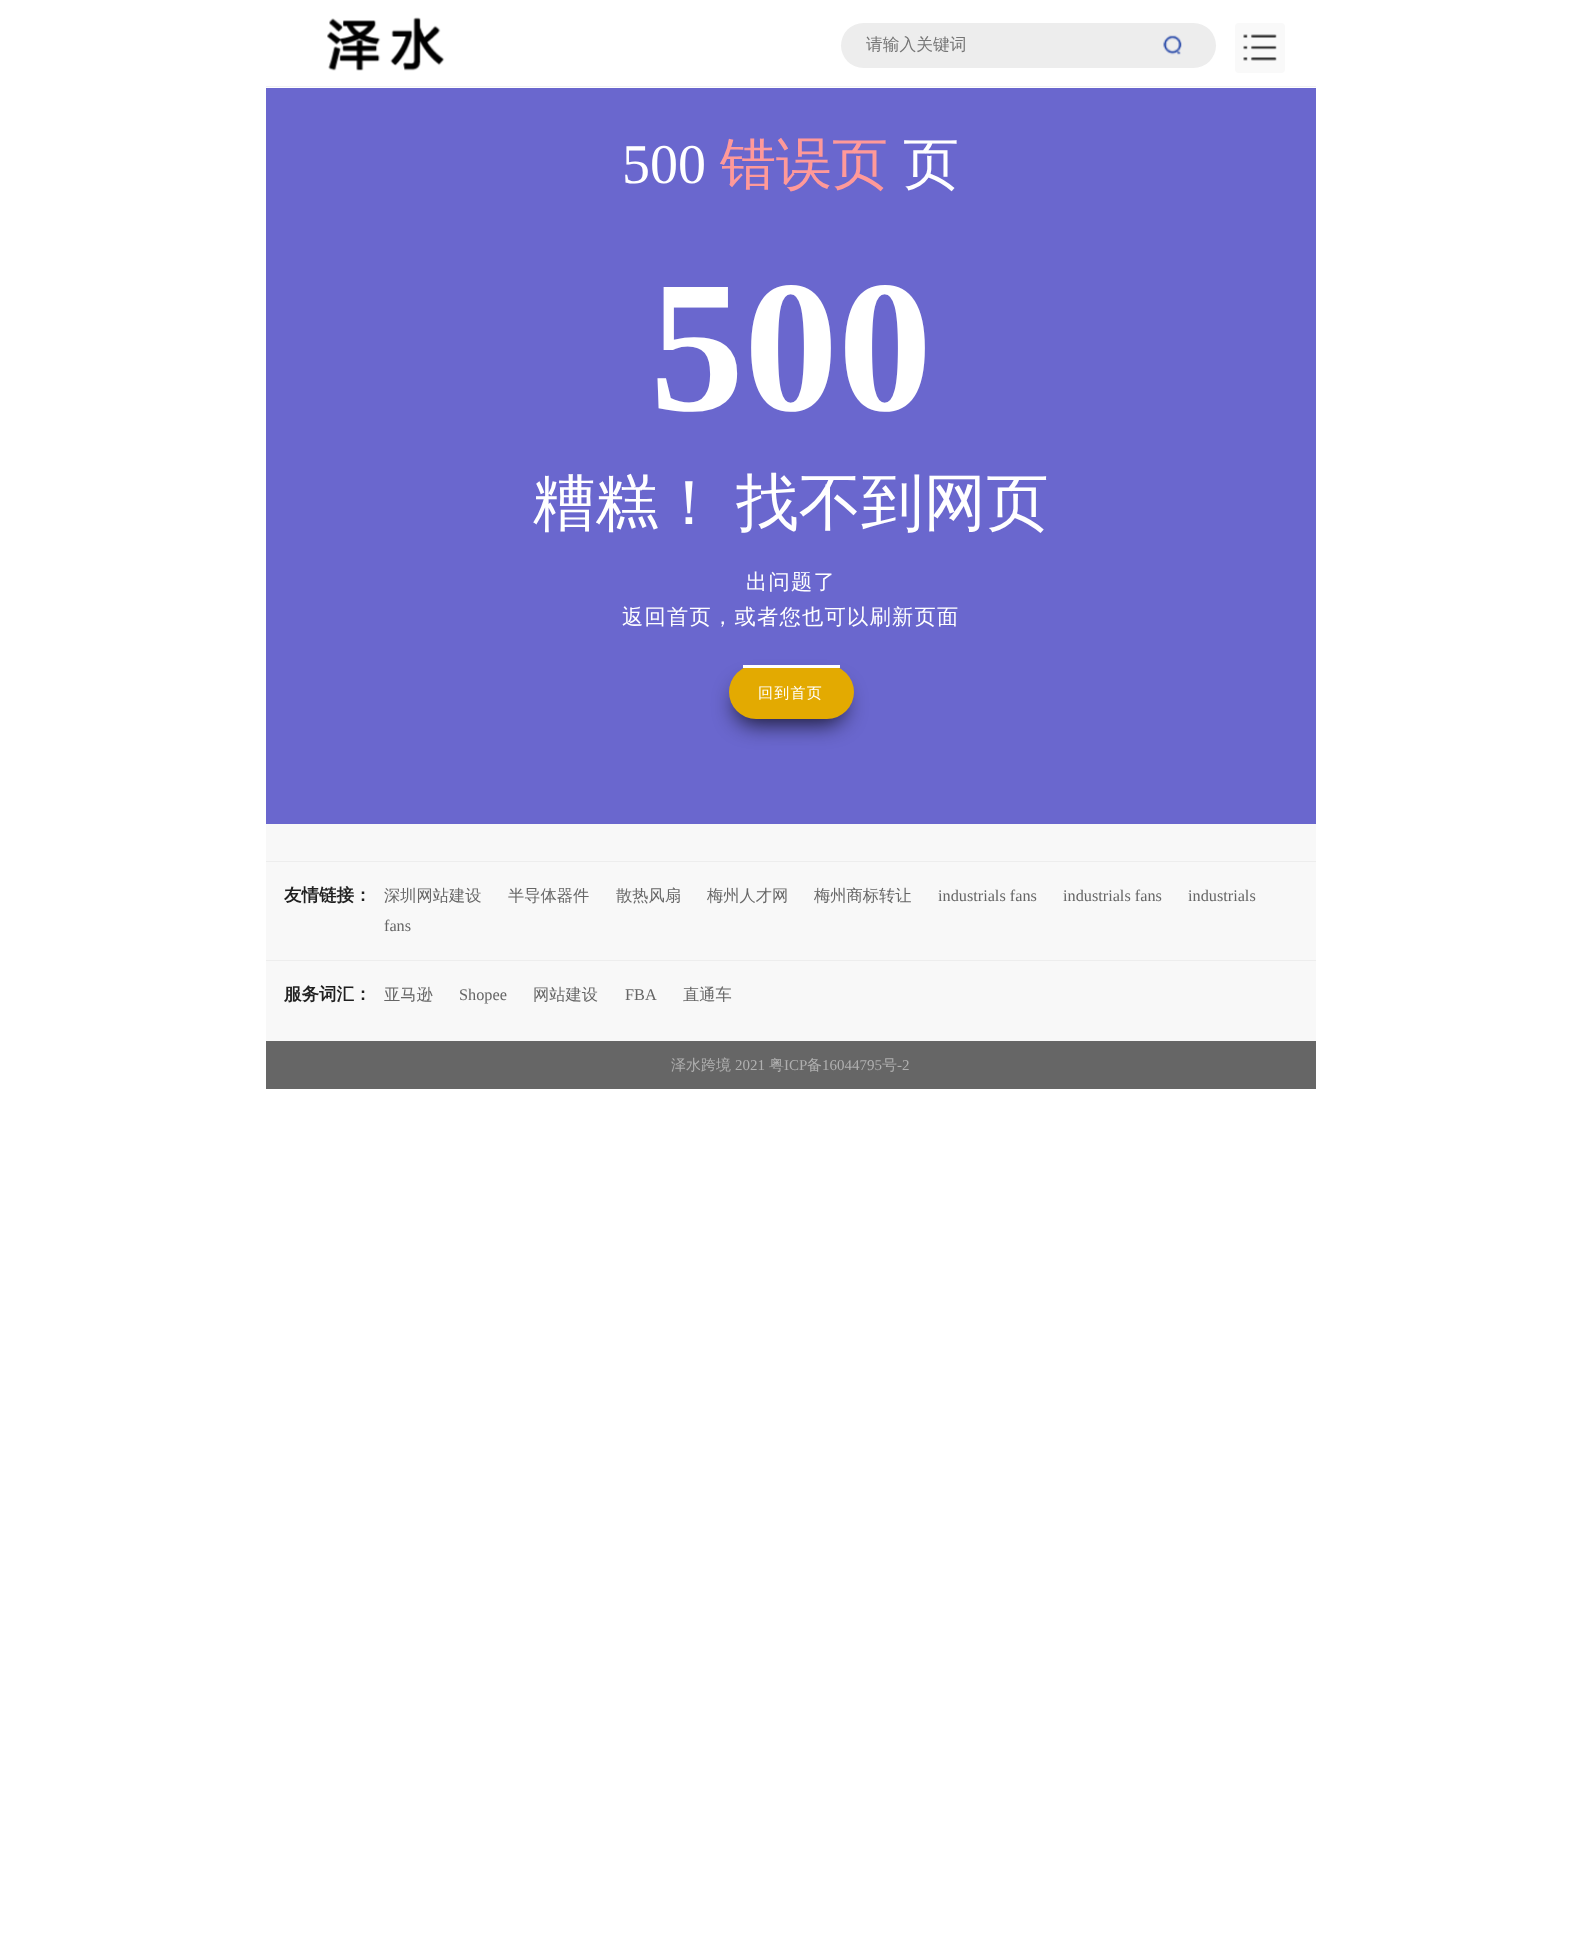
<!DOCTYPE html>
<meta charset="utf-8">
<style>body { margin: 0 } canvas { display: block }</style>
<canvas id="canvas" width="1581" height="1943"></canvas>
<img id="img1" src="images/1.png" hidden>
<img id="img2" src="images/2.png" hidden>
<img id="img3" src="images/3.png" hidden>
<script>
window.onload = function () {
    const canvas = document.getElementById('canvas');
    const context = canvas.getContext('2d');
    context.miterLimit = 4;
    context.fontKerning = 'normal';

    context.fillStyle = 'rgb(255, 255, 255)';
    context.fillRect(0, 0, 1581, 1943);
    context.fillStyle = 'rgb(242, 242, 242)';
    context.fillRect(266, 86, 1050, 1);
    context.drawImage(document.getElementById('img1'), 327, 17, 118, 54);
    context.fillStyle = 'rgb(237, 237, 237)';
    context.beginPath();
    context.roundRect(841, 23, 375, 45, 22.5);
    context.fill();
    context.drawImage(document.getElementById('img2'), 1163, 35, 19, 20);
    context.fillStyle = 'rgb(249, 249, 249)';
    context.beginPath();
    context.roundRect(1235, 23, 50, 50, 4);
    context.fill();
    context.drawImage(document.getElementById('img3'), 1243, 34, 34, 27);
    context.fillStyle = 'rgb(106, 103, 206)';
    context.fillRect(266, 88, 1050, 736);
    context.fillStyle = 'rgba(0, 0, 0, 0.75)';
    context.filter = 'blur(11px)';
    context.beginPath();
    context.roundRect(735, 685, 110, 39, 19.5);
    context.fill();
    context.filter = 'none';
    context.fillStyle = 'rgb(227, 170, 1)';
    context.beginPath();
    context.roundRect(729, 665, 125, 54, 27);
    context.fill();
    context.fillStyle = 'rgb(255, 255, 255)';
    context.fillRect(743, 665, 97, 3);
    context.fillStyle = 'rgb(248, 248, 248)';
    context.fillRect(266, 824, 1050, 217);
    context.fillStyle = 'rgb(237, 237, 237)';
    context.fillRect(266, 861, 1050, 1);
    context.fillRect(266, 960, 1050, 1);
    context.fillStyle = 'rgb(102, 102, 102)';
    context.fillRect(266, 1041, 1050, 48);
    context.font = '500 16.75px WenQuanYi Zen Hei';
    context.fillStyle = 'rgb(117, 117, 117)';
    context.fillText('请输入关键词', 866, 50);
    context.font = '56px Liberation Serif';
    context.fillStyle = 'rgb(255, 255, 255)';
    context.fillText('500', 622, 183);
    context.font = '500 56px WenQuanYi Zen Hei';
    context.fillStyle = 'rgb(255, 153, 153)';
    context.fillText('错误页', 720, 183);
    context.fillStyle = 'rgb(255, 255, 255)';
    context.fillText('页', 903, 183);
    context.font = 'bold 188px Liberation Serif';
    context.fillText('500', 650, 410);
    context.wordSpacing = '-3px';
    context.font = '500 62.5px WenQuanYi Zen Hei';
    context.fillText('糟糕！ 找不到网页', 533, 524);
    context.letterSpacing = '1.25px';
    context.wordSpacing = '0px';
    context.font = '500 21.25px WenQuanYi Zen Hei';
    context.fillText('出问题了', 746, 589);
    context.fillText('返回首页，或者您也可以刷新页面', 622, 624);
    context.font = '500 15px WenQuanYi Zen Hei';
    context.fillText('回到首页', 758, 698);
    context.letterSpacing = '0px';
    context.font = 'bold 17.5px WenQuanYi Zen Hei';
    context.fillStyle = 'rgb(32, 32, 32)';
    context.fillText('友情链接：', 284, 901);
    context.font = '500 16.25px WenQuanYi Zen Hei';
    context.fillStyle = 'rgb(102, 102, 102)';
    context.fillText('深圳网站建设', 384, 901);
    context.fillText('半导体器件', 508, 901);
    context.fillText('散热风扇', 616, 901);
    context.fillText('梅州人才网', 707, 901);
    context.fillText('梅州商标转让', 814, 901);
    context.font = '16.25px Liberation Serif';
    context.fillText('industrials fans', 938, 901);
    context.fillText('industrials fans', 1063, 901);
    context.fillText('industrials', 1188, 901);
    context.fillText('fans', 384, 931);
    context.font = 'bold 17.5px WenQuanYi Zen Hei';
    context.fillStyle = 'rgb(32, 32, 32)';
    context.fillText('服务词汇：', 284, 1000);
    context.font = '500 16.25px WenQuanYi Zen Hei';
    context.fillStyle = 'rgb(102, 102, 102)';
    context.fillText('亚马逊', 384, 1000);
    context.font = '16.25px Liberation Serif';
    context.fillText('Shopee', 459, 1000);
    context.font = '500 16.25px WenQuanYi Zen Hei';
    context.fillText('网站建设', 533, 1000);
    context.font = '16.25px Liberation Serif';
    context.fillText('FBA', 625, 1000);
    context.font = '500 16.25px WenQuanYi Zen Hei';
    context.fillText('直通车', 683, 1000);
    context.font = '500 15px WenQuanYi Zen Hei';
    context.fillStyle = 'rgb(176, 176, 176)';
    context.fillText('泽水跨境', 671, 1070);
    context.font = '15px Liberation Serif';
    context.fillText('2021', 735, 1070);
    context.font = '500 15px WenQuanYi Zen Hei';
    context.fillText('粤', 769, 1070);
    context.font = '15px Liberation Serif';
    context.fillText('ICP', 784, 1070);
    context.font = '500 15px WenQuanYi Zen Hei';
    context.fillText('备', 807, 1070);
    context.font = '15px Liberation Serif';
    context.fillText('16044795', 822, 1070);
    context.font = '500 15px WenQuanYi Zen Hei';
    context.fillText('号', 882, 1070);
    context.font = '15px Liberation Serif';
    context.fillText('-2', 897, 1070);
};
</script>
